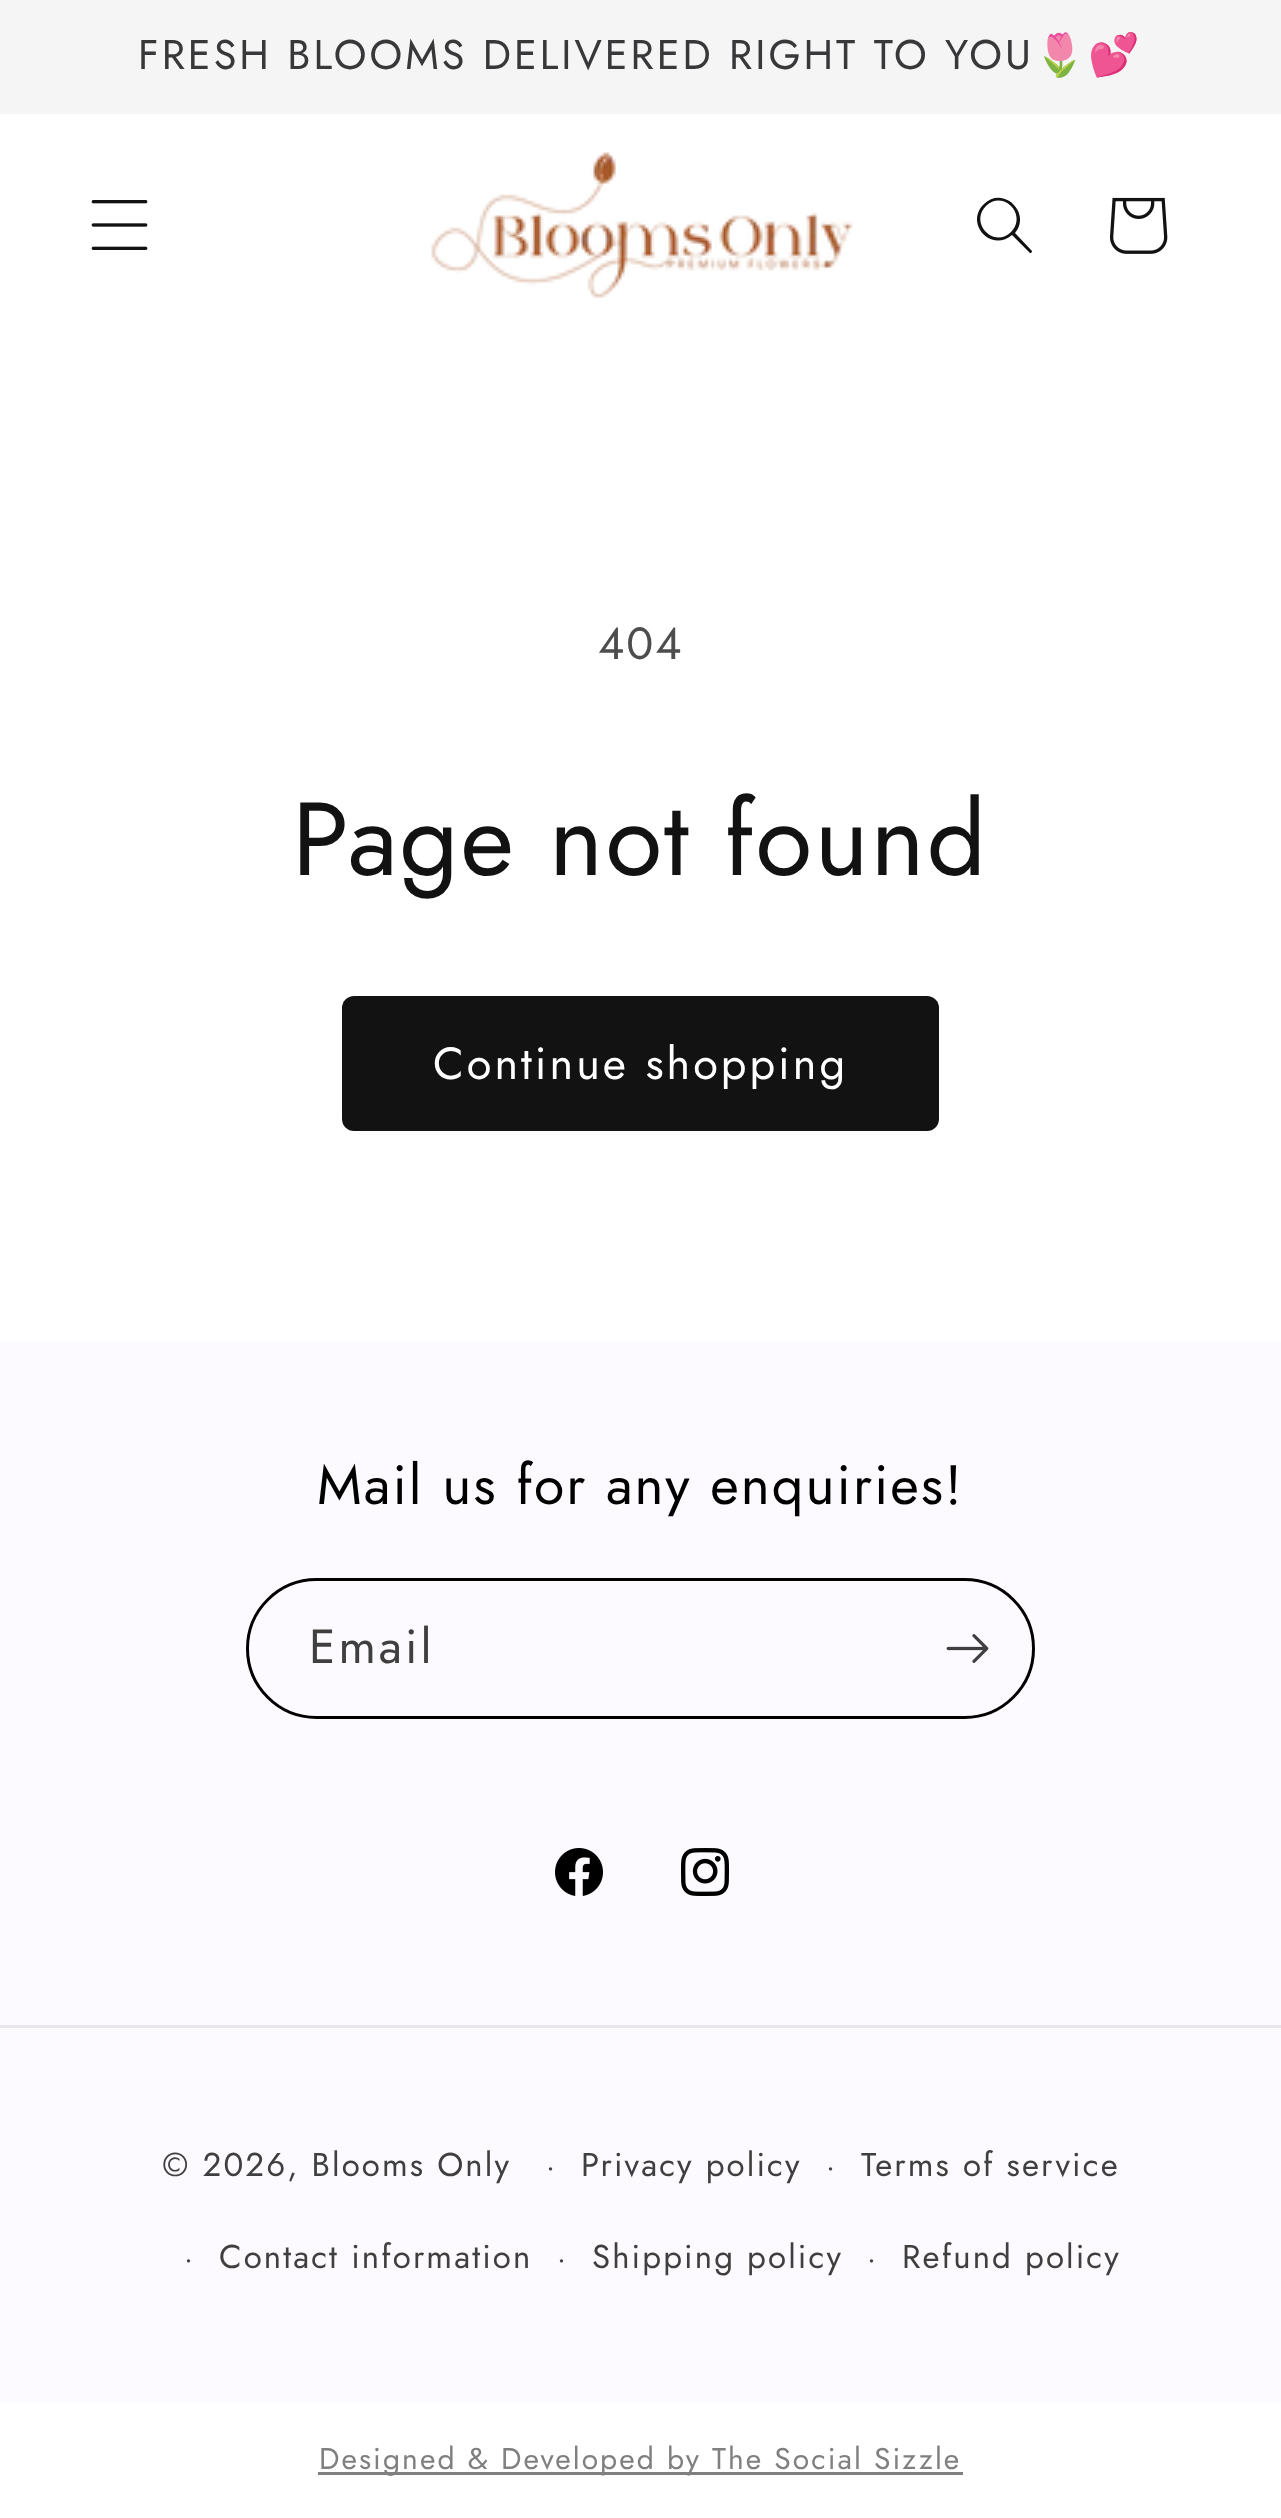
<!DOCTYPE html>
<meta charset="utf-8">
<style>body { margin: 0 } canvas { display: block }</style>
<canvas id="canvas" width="1281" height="2518"></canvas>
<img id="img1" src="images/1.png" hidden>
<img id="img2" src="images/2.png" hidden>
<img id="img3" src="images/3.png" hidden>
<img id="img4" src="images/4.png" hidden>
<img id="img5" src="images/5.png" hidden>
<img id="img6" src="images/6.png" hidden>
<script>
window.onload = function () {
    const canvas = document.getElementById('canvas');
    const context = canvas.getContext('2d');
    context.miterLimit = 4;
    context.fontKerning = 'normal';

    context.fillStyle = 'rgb(255, 255, 255)';
    context.fillRect(0, 0, 1281, 2518);
    context.fillStyle = 'rgb(245, 245, 245)';
    context.fillRect(0, 0, 1281, 114);
    context.drawImage(document.getElementById('img1'), 91, 200, 57, 50);
    context.drawImage(document.getElementById('img2'), 431, 152, 422, 147);
    context.fillStyle = 'rgb(18, 18, 18)';
    context.beginPath();
    context.moveTo(1011, 232);
    context.bezierCurveTo(994, 249, 969, 223, 986, 206);
    context.bezierCurveTo(1003, 189, 1028, 215, 1011, 232);
    context.moveTo(1012, 235);
    context.bezierCurveTo(991, 253, 964, 223, 984, 204);
    context.bezierCurveTo(1003, 185, 1032, 213, 1015, 233);
    context.lineTo(1032, 251);
    context.bezierCurveTo(1032, 253, 1030, 254, 1029, 252);
    context.closePath();
    context.fill('evenodd');
    context.drawImage(document.getElementById('img3'), 1110, 197, 58, 57);
    context.beginPath();
    context.roundRect(342, 996, 597, 135, 12);
    context.fill();
    context.fillStyle = 'rgb(252, 250, 255)';
    context.fillRect(0, 1341, 1281, 1062);
    context.beginPath();
    context.roundRect(247.5, 1579.5, 786, 138, 69);
    context.strokeStyle = 'rgb(0, 0, 0)';
    context.lineWidth = 3;
    context.stroke();
    context.drawImage(document.getElementById('img4'), 946, 1634, 43, 29);
    context.drawImage(document.getElementById('img5'), 555, 1848, 48, 48);
    context.drawImage(document.getElementById('img6'), 681, 1848, 48, 48);
    context.fillStyle = 'rgb(232, 230, 235)';
    context.fillRect(0, 2025, 1281, 3);
    context.fillStyle = 'rgb(128, 128, 128)';
    context.fillRect(318, 2472, 645, 3);
    context.letterSpacing = '3px';
    context.font = '41.4px Jost';
    context.fillStyle = 'rgb(56, 55, 58)';
    context.fillText('FRESH BLOOMS DELIVERED RIGHT TO YOU', 138, 69);
    context.font = '41.4px Noto Color Emoji';
    context.fillText('🌷💕', 1034, 69);
    context.letterSpacing = '2px';
    context.font = '45px Jost';
    context.fillStyle = 'rgb(77, 77, 77)';
    context.fillText('404', 598, 659);
    context.letterSpacing = '2.05px';
    context.font = '103.5px Jost';
    context.fillStyle = 'rgb(18, 18, 18)';
    context.fillText('Page not found', 292, 875);
    context.letterSpacing = '3px';
    context.font = '45px Jost';
    context.fillStyle = 'rgb(255, 255, 255)';
    context.fillText('Continue shopping', 433, 1079);
    context.letterSpacing = '2.05px';
    context.font = '55.25px Jost';
    context.fillStyle = 'rgb(0, 0, 0)';
    context.fillText('Mail us for any enquiries!', 317, 1504);
    context.letterSpacing = '3px';
    context.font = '48px Jost';
    context.fillStyle = 'rgb(63, 63, 64)';
    context.fillText('Email', 309, 1663);
    context.letterSpacing = '2.1px';
    context.font = '30px Jost';
    context.fillText('·', 546, 2176);
    context.font = '33px Jost';
    context.fillText('Privacy policy', 581, 2176);
    context.font = '30px Jost';
    context.fillText('·', 826, 2176);
    context.font = '33px Jost';
    context.fillText('Terms of service', 861, 2176);
    context.font = '30px Jost';
    context.fillText('·', 184, 2268);
    context.font = '33px Jost';
    context.fillText('Contact information', 219, 2268);
    context.font = '30px Jost';
    context.fillText('·', 557, 2268);
    context.font = '33px Jost';
    context.fillText('Shipping policy', 592, 2268);
    context.font = '30px Jost';
    context.fillText('·', 867, 2268);
    context.font = '33px Jost';
    context.fillText('Refund policy', 902, 2268);
    context.fillText('© 2026, Blooms Only', 162, 2176);
    context.letterSpacing = '2.05px';
    context.font = '30px Jost';
    context.fillStyle = 'rgb(128, 128, 128)';
    context.fillText('Designed & Developed by The Social Sizzle', 319, 2469);
};
</script>
